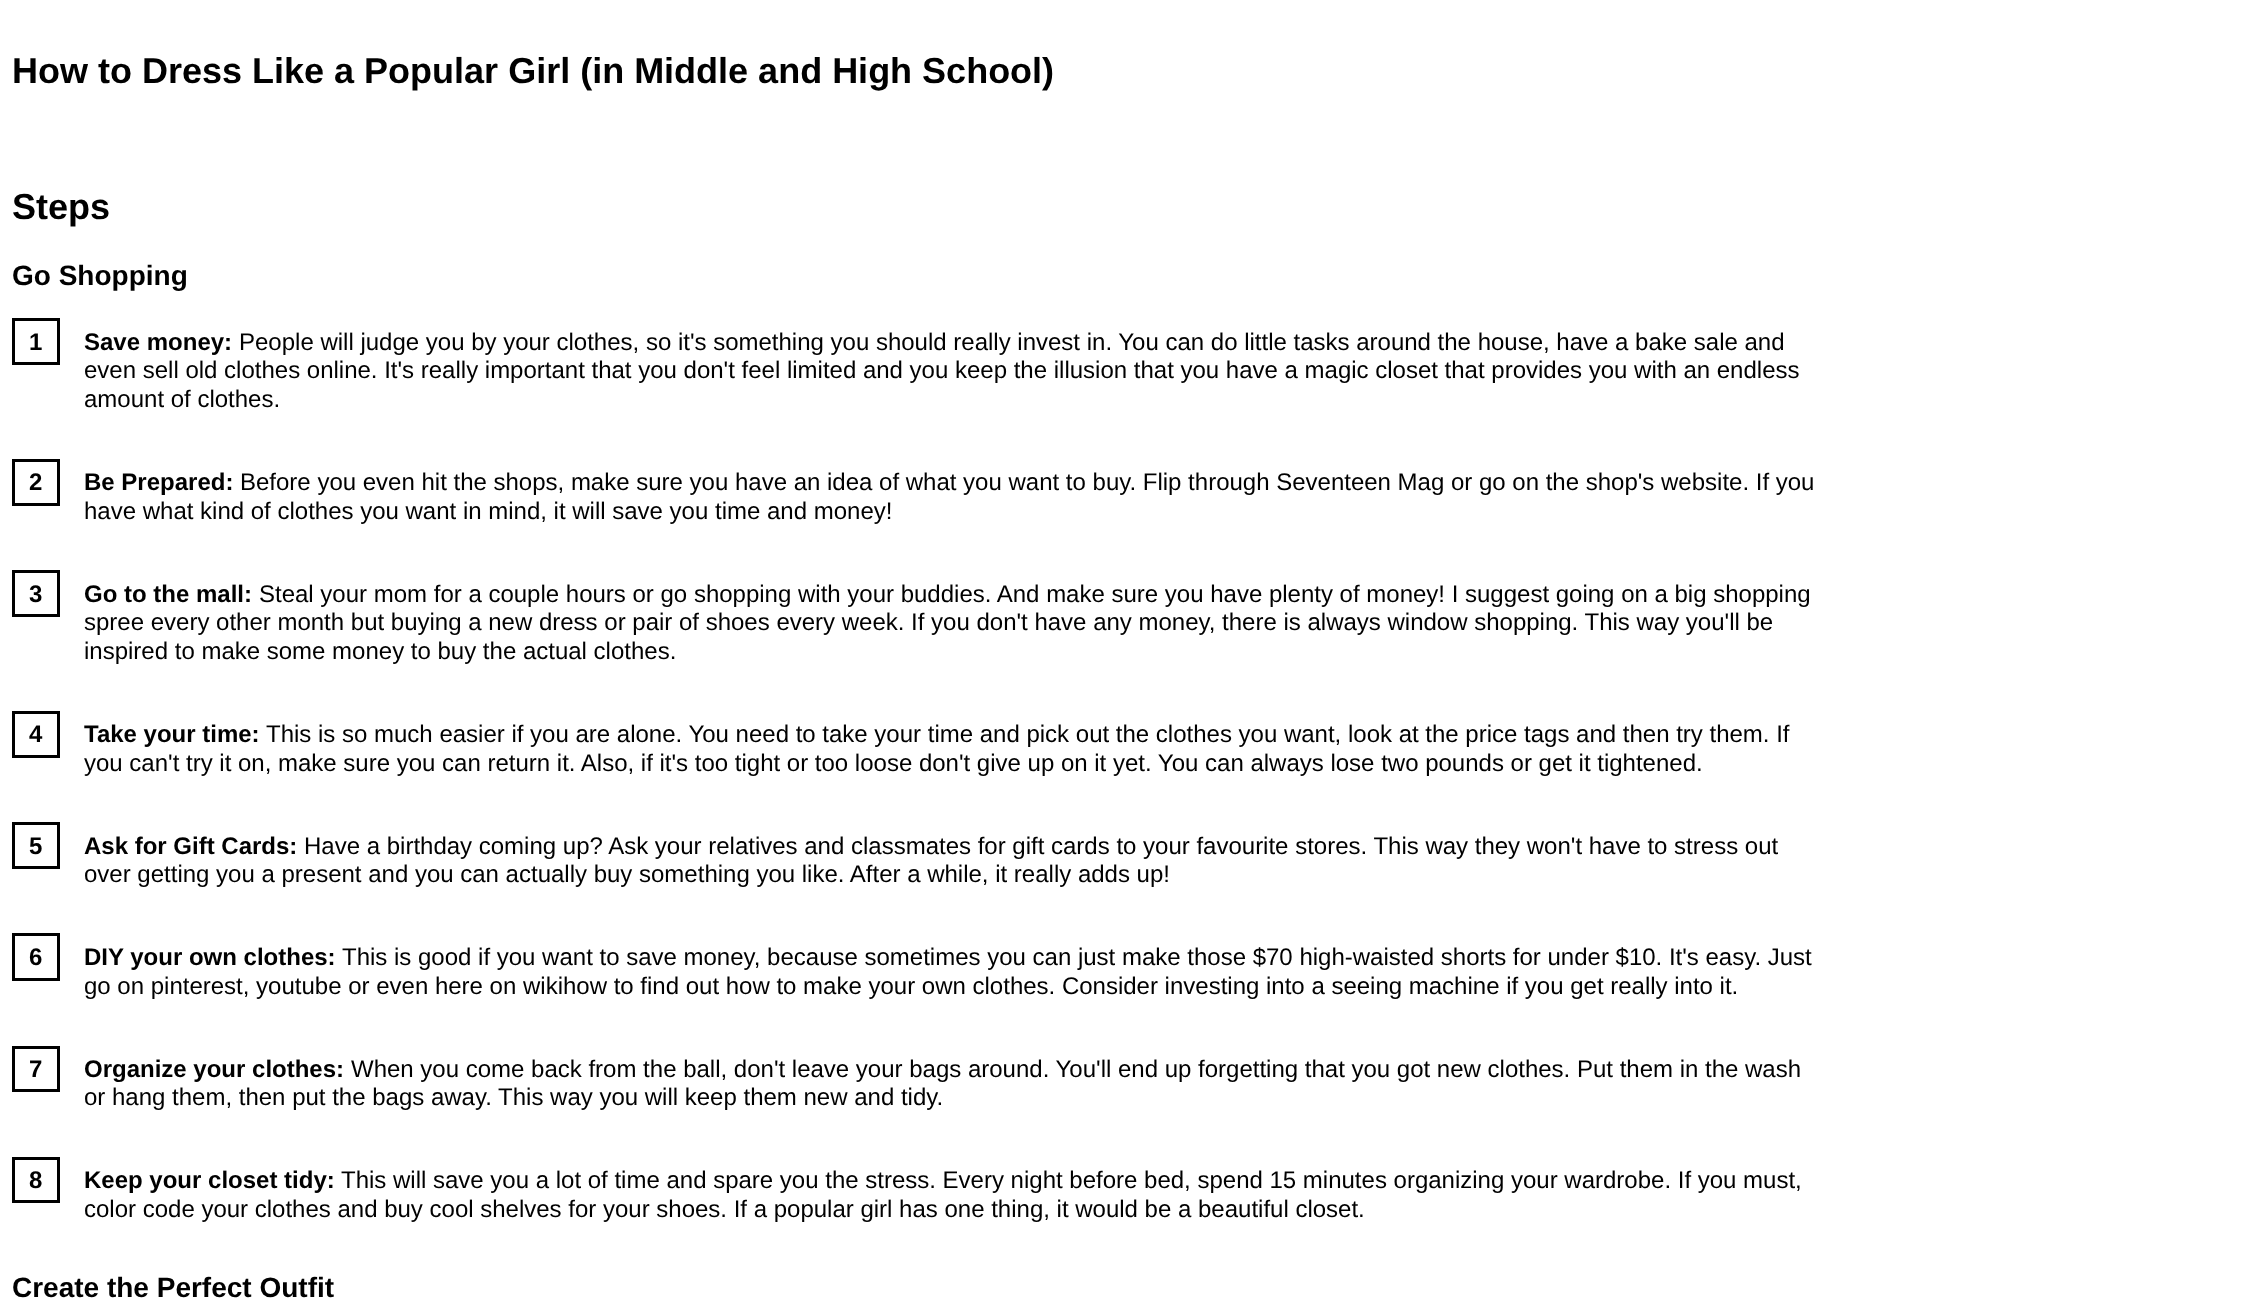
<!DOCTYPE html>
<meta charset="utf-8">
<style>body { margin: 0 } canvas { display: block }</style>
<canvas id="canvas" width="2265" height="1302"></canvas>
<script>
window.onload = function () {
    const canvas = document.getElementById('canvas');
    const context = canvas.getContext('2d');
    context.miterLimit = 4;
    context.fontKerning = 'normal';

    context.fillStyle = 'rgb(255, 255, 255)';
    context.fillRect(0, 0, 2265, 1302);
    context.strokeStyle = 'rgb(0, 0, 0)';
    context.lineWidth = 3;
    context.strokeRect(13.5, 319.5, 45, 44);
    context.strokeRect(13.5, 460.5, 45, 44);
    context.strokeRect(13.5, 571.5, 45, 44);
    context.strokeRect(13.5, 712.5, 45, 44);
    context.strokeRect(13.5, 823.5, 45, 44);
    context.strokeRect(13.5, 934.5, 45, 45);
    context.strokeRect(13.5, 1047.5, 45, 43);
    context.strokeRect(13.5, 1158.5, 45, 43);
    context.font = 'bold 36px Liberation Sans';
    context.fillStyle = 'rgb(0, 0, 0)';
    context.fillText('How to Dress Like a Popular Girl (in Middle and High School)', 12, 83);
    context.fillText('Steps', 12, 219);
    context.font = 'bold 28px Liberation Sans';
    context.fillText('Go Shopping', 12, 285);
    context.font = 'bold 24px Liberation Sans';
    context.fillText('1', 29, 350);
    context.fillText('Save money:', 84, 350);
    context.font = '24px Liberation Sans';
    context.fillText('People will judge you by your clothes, so it\'s something you should really invest in. You can do little tasks around the house, have a bake sale and', 239, 350);
    context.fillText('even sell old clothes online. It\'s really important that you don\'t feel limited and you keep the illusion that you have a magic closet that provides you with an endless', 84, 378);
    context.fillText('amount of clothes.', 84, 407);
    context.font = 'bold 24px Liberation Sans';
    context.fillText('2', 29, 490);
    context.fillText('Be Prepared:', 84, 490);
    context.font = '24px Liberation Sans';
    context.fillText('Before you even hit the shops, make sure you have an idea of what you want to buy. Flip through Seventeen Mag or go on the shop\'s website. If you', 240, 490);
    context.fillText('have what kind of clothes you want in mind, it will save you time and money!', 84, 519);
    context.font = 'bold 24px Liberation Sans';
    context.fillText('3', 29, 602);
    context.fillText('Go to the mall:', 84, 602);
    context.font = '24px Liberation Sans';
    context.fillText('Steal your mom for a couple hours or go shopping with your buddies. And make sure you have plenty of money! I suggest going on a big shopping', 259, 602);
    context.fillText('spree every other month but buying a new dress or pair of shoes every week. If you don\'t have any money, there is always window shopping. This way you\'ll be', 84, 630);
    context.fillText('inspired to make some money to buy the actual clothes.', 84, 659);
    context.font = 'bold 24px Liberation Sans';
    context.fillText('4', 29, 742);
    context.fillText('Take your time:', 84, 742);
    context.font = '24px Liberation Sans';
    context.fillText('This is so much easier if you are alone. You need to take your time and pick out the clothes you want, look at the price tags and then try them. If', 266, 742);
    context.fillText('you can\'t try it on, make sure you can return it. Also, if it\'s too tight or too loose don\'t give up on it yet. You can always lose two pounds or get it tightened.', 84, 771);
    context.font = 'bold 24px Liberation Sans';
    context.fillText('5', 29, 854);
    context.fillText('Ask for Gift Cards:', 84, 854);
    context.font = '24px Liberation Sans';
    context.fillText('Have a birthday coming up? Ask your relatives and classmates for gift cards to your favourite stores. This way they won\'t have to stress out', 304, 854);
    context.fillText('over getting you a present and you can actually buy something you like. After a while, it really adds up!', 84, 882);
    context.font = 'bold 24px Liberation Sans';
    context.fillText('6', 29, 965);
    context.fillText('DIY your own clothes:', 84, 965);
    context.font = '24px Liberation Sans';
    context.fillText('This is good if you want to save money, because sometimes you can just make those $70 high-waisted shorts for under $10. It\'s easy. Just', 342, 965);
    context.fillText('go on pinterest, youtube or even here on wikihow to find out how to make your own clothes. Consider investing into a seeing machine if you get really into it.', 84, 994);
    context.font = 'bold 24px Liberation Sans';
    context.fillText('7', 29, 1077);
    context.fillText('Organize your clothes:', 84, 1077);
    context.font = '24px Liberation Sans';
    context.fillText('When you come back from the ball, don\'t leave your bags around. You\'ll end up forgetting that you got new clothes. Put them in the wash', 351, 1077);
    context.fillText('or hang them, then put the bags away. This way you will keep them new and tidy.', 84, 1105);
    context.font = 'bold 24px Liberation Sans';
    context.fillText('8', 29, 1188);
    context.fillText('Keep your closet tidy:', 84, 1188);
    context.font = '24px Liberation Sans';
    context.fillText('This will save you a lot of time and spare you the stress. Every night before bed, spend 15 minutes organizing your wardrobe. If you must,', 341, 1188);
    context.fillText('color code your clothes and buy cool shelves for your shoes. If a popular girl has one thing, it would be a beautiful closet.', 84, 1217);
    context.font = 'bold 28px Liberation Sans';
    context.fillText('Create the Perfect Outfit', 12, 1297);
};
</script>
